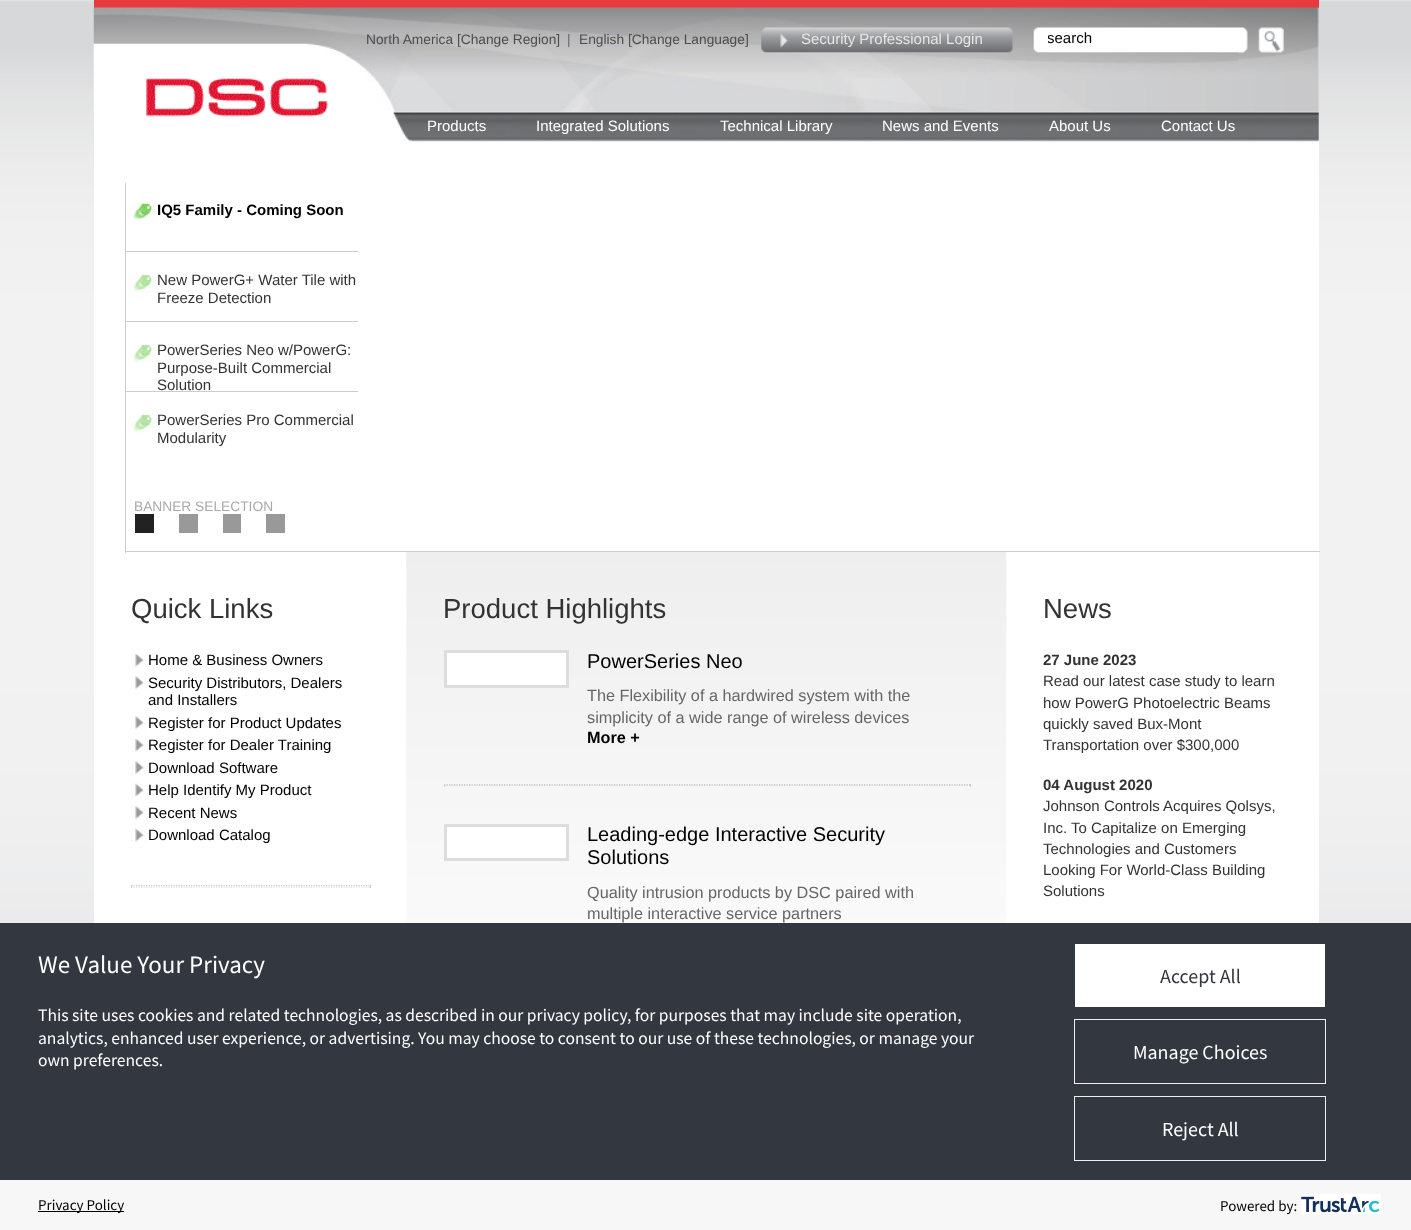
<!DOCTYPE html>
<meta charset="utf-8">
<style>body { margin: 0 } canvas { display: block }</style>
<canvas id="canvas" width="1411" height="1230"></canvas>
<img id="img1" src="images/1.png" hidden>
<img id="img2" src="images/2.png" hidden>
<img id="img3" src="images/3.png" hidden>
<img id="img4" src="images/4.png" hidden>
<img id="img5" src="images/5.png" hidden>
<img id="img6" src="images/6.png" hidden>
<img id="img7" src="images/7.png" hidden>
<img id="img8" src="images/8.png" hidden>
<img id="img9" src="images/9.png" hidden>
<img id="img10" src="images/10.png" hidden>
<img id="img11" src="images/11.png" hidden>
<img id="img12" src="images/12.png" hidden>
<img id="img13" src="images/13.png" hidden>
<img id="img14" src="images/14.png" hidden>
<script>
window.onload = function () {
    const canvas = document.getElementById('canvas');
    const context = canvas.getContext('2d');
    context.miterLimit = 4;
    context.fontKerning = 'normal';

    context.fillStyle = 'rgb(224, 225, 227)';
    context.fillRect(0, 0, 1411, 1230);
    context.drawImage(document.getElementById('img1'), 0, 1, 1411, 922);
    context.fillStyle = 'rgb(255, 255, 255)';
    context.fillRect(94, 8, 1225, 915);
    context.fillStyle = 'rgb(233, 59, 63)';
    context.fillRect(94, 0, 1225, 8);
    context.drawImage(document.getElementById('img2'), 93, 7, 1226, 106);
    context.drawImage(document.getElementById('img3'), 146, 78, 182, 39);
    context.drawImage(document.getElementById('img4'), 761, 27, 252, 26);
    context.drawImage(document.getElementById('img5'), 1033, 27, 215, 26);
    context.fillStyle = 'rgb(255, 255, 255)';
    context.fillRect(1242, 28, 1, 1);
    context.drawImage(document.getElementById('img6'), 1258, 27, 26, 26);
    context.drawImage(document.getElementById('img7'), 346, 52, 893, 59);
    context.drawImage(document.getElementById('img8'), 393, 112, 926, 30);
    context.fillStyle = 'rgb(204, 204, 204)';
    context.fillRect(125, 551, 1195, 1);
    context.fillRect(125, 183, 1, 370);
    context.fillRect(126, 251, 232, 1);
    context.drawImage(document.getElementById('img9'), 126, 203, 31, 16);
    context.fillRect(126, 321, 232, 1);
    context.drawImage(document.getElementById('img10'), 129, 273, 29, 20);
    context.fillRect(126, 391, 232, 1);
    context.drawImage(document.getElementById('img10'), 129, 343, 29, 20);
    context.drawImage(document.getElementById('img10'), 129, 413, 29, 20);
    context.fillStyle = 'rgb(34, 34, 34)';
    context.fillRect(135, 514, 19, 19);
    context.fillStyle = 'rgb(153, 153, 153)';
    context.fillRect(179, 514, 19, 19);
    context.fillRect(223, 514, 18, 19);
    context.fillRect(266, 514, 19, 19);
    context.drawImage(document.getElementById('img11'), 131, 653, 15, 15);
    context.drawImage(document.getElementById('img12'), 131, 676, 15, 14);
    context.drawImage(document.getElementById('img12'), 131, 716, 15, 14);
    context.drawImage(document.getElementById('img11'), 131, 738, 15, 15);
    context.drawImage(document.getElementById('img12'), 131, 761, 15, 14);
    context.drawImage(document.getElementById('img11'), 131, 783, 15, 15);
    context.drawImage(document.getElementById('img12'), 131, 806, 15, 14);
    context.drawImage(document.getElementById('img11'), 131, 828, 15, 15);
    context.beginPath();
    context.moveTo(131, 885.5);
    context.lineTo(371, 885.5);
    context.strokeStyle = 'rgb(204, 204, 204)';
    context.lineWidth = 1.2;
    context.setLineDash([1.25, 1.25]);
    context.stroke();
    context.fillStyle = 'rgb(204, 204, 204)';
    context.fillRect(370, 885, 1, 3);
    context.beginPath();
    context.moveTo(131, 887);
    context.lineTo(371, 887);
    context.stroke();
    context.fillRect(131, 885, 1, 3);
    context.drawImage(document.getElementById('img13'), 406, 552, 601, 371);
    context.fillStyle = 'rgb(255, 255, 255)';
    context.beginPath();
    context.rect(445.5, 651.5, 122, 35);
    context.fill();
    context.strokeStyle = 'rgb(221, 221, 221)';
    context.lineWidth = 3;
    context.setLineDash([]);
    context.stroke();
    context.beginPath();
    context.moveTo(444, 784.5);
    context.lineTo(971, 784.5);
    context.strokeStyle = 'rgb(204, 204, 204)';
    context.lineWidth = 1.2;
    context.setLineDash([1.25, 1.25]);
    context.stroke();
    context.fillStyle = 'rgb(204, 204, 204)';
    context.fillRect(970, 784, 1, 3);
    context.beginPath();
    context.moveTo(444, 785.5);
    context.lineTo(971, 785.5);
    context.stroke();
    context.fillRect(444, 784, 1, 3);
    context.fillStyle = 'rgb(255, 255, 255)';
    context.beginPath();
    context.rect(445.5, 825.5, 122, 34);
    context.fill();
    context.strokeStyle = 'rgb(221, 221, 221)';
    context.lineWidth = 3;
    context.setLineDash([]);
    context.stroke();
    context.fillStyle = 'rgb(51, 55, 64)';
    context.fillRect(0, 923, 1411, 257);
    context.fillStyle = 'rgb(255, 255, 255)';
    context.fillRect(1075, 944, 250, 63);
    context.strokeStyle = 'rgb(238, 238, 238)';
    context.lineWidth = 1;
    context.strokeRect(1074.5, 1019.5, 251, 64);
    context.strokeRect(1074.5, 1096.5, 251, 64);
    context.fillStyle = 'rgb(247, 247, 247)';
    context.fillRect(0, 1180, 1411, 50);
    context.fillStyle = 'rgb(0, 0, 0)';
    context.fillRect(38, 1211, 86, 1);
    context.drawImage(document.getElementById('img14'), 1301, 1194, 80, 20);
    context.font = '13.75px Liberation Sans';
    context.fillStyle = 'rgb(77, 77, 77)';
    context.fillText('North America [Change Region]', 366, 44);
    context.fillStyle = 'rgb(102, 102, 102)';
    context.fillText('|', 567, 44);
    context.fillStyle = 'rgb(77, 77, 77)';
    context.fillText('English [Change Language]', 579, 44);
    context.font = '15px Liberation Sans';
    context.fillStyle = 'rgb(230, 230, 230)';
    context.fillText('Security Professional Login', 801, 44);
    context.save();
    context.beginPath();
    context.rect(1048, 29, 193, 17);
    context.clip();
    context.fillStyle = 'rgb(0, 0, 0)';
    context.fillText('search', 1047, 43);
    context.restore();
    context.fillStyle = 'rgb(255, 255, 255)';
    context.fillText('Products', 427, 131);
    context.fillText('Integrated Solutions', 536, 131);
    context.fillText('Technical Library', 720, 131);
    context.fillText('News and Events', 882, 131);
    context.fillText('About Us', 1049, 131);
    context.fillText('Contact Us', 1161, 131);
    context.font = 'bold 15px Liberation Sans';
    context.fillStyle = 'rgb(0, 0, 0)';
    context.fillText('IQ5 Family - Coming Soon', 157, 215);
    context.font = '15px Liberation Sans';
    context.fillStyle = 'rgb(51, 51, 51)';
    context.fillText('New PowerG+ Water Tile with', 157, 285);
    context.fillText('Freeze Detection', 157, 303);
    context.fillText('PowerSeries Neo w/PowerG:', 157, 355);
    context.fillText('Purpose-Built Commercial', 157, 373);
    context.fillText('Solution', 157, 390);
    context.fillText('PowerSeries Pro Commercial', 157, 425);
    context.fillText('Modularity', 157, 443);
    context.font = '13.75px Liberation Sans';
    context.fillStyle = 'rgb(170, 170, 170)';
    context.fillText('BANNER SELECTION', 134, 511);
    context.font = '27.5px Liberation Sans';
    context.fillStyle = 'rgb(51, 51, 51)';
    context.fillText('Quick Links', 131, 618);
    context.font = '15px Liberation Sans';
    context.fillStyle = 'rgb(0, 0, 0)';
    context.fillText('Home & Business Owners', 148, 665);
    context.fillText('Security Distributors, Dealers', 148, 688);
    context.fillText('and Installers', 148, 705);
    context.fillText('Register for Product Updates', 148, 728);
    context.fillText('Register for Dealer Training', 148, 750);
    context.fillText('Download Software', 148, 773);
    context.fillText('Help Identify My Product', 148, 795);
    context.fillText('Recent News', 148, 818);
    context.fillText('Download Catalog', 148, 840);
    context.font = '27.5px Liberation Sans';
    context.fillStyle = 'rgb(51, 51, 51)';
    context.fillText('Product Highlights', 443, 618);
    context.font = '20px Liberation Sans';
    context.fillStyle = 'rgb(0, 0, 0)';
    context.fillText('PowerSeries Neo', 587, 668);
    context.font = '16.25px Liberation Sans';
    context.fillStyle = 'rgb(102, 102, 102)';
    context.fillText('The Flexibility of a hardwired system with the', 587, 701);
    context.fillText('simplicity of a wide range of wireless devices', 587, 723);
    context.font = 'bold 16.25px Liberation Sans';
    context.fillStyle = 'rgb(0, 0, 0)';
    context.fillText('More +', 587, 743);
    context.font = '20px Liberation Sans';
    context.fillText('Leading-edge Interactive Security', 587, 841);
    context.fillText('Solutions', 587, 864);
    context.font = '16.25px Liberation Sans';
    context.fillStyle = 'rgb(102, 102, 102)';
    context.fillText('Quality intrusion products by DSC paired with', 587, 898);
    context.fillText('multiple interactive service partners', 587, 919);
    context.font = '27.5px Liberation Sans';
    context.fillStyle = 'rgb(51, 51, 51)';
    context.fillText('News', 1043, 618);
    context.font = 'bold 15px Liberation Sans';
    context.fillText('27 June 2023', 1043, 665);
    context.font = '15px Liberation Sans';
    context.fillText('Read our latest case study to learn', 1043, 686);
    context.fillText('how PowerG Photoelectric Beams', 1043, 708);
    context.fillText('quickly saved Bux-Mont', 1043, 729);
    context.fillText('Transportation over $300,000', 1043, 750);
    context.font = 'bold 15px Liberation Sans';
    context.fillText('04 August 2020', 1043, 790);
    context.font = '15px Liberation Sans';
    context.fillText('Johnson Controls Acquires Qolsys,', 1043, 811);
    context.fillText('Inc. To Capitalize on Emerging', 1043, 833);
    context.fillText('Technologies and Customers', 1043, 854);
    context.fillText('Looking For World-Class Building', 1043, 875);
    context.fillText('Solutions', 1043, 896);
    context.font = '25px Source Sans Pro';
    context.fillStyle = 'rgb(255, 255, 255)';
    context.fillText('We Value Your Privacy', 38, 973);
    context.font = '17.5px Source Sans Pro';
    context.fillText('This site uses cookies and related technologies, as described in our privacy policy, for purposes that may include site operation,', 38, 1021);
    context.fillText('analytics, enhanced user experience, or advertising. You may choose to consent to our use of these technologies, or manage your', 38, 1044);
    context.fillText('own preferences.', 38, 1066);
    context.font = '20px Source Sans Pro';
    context.fillStyle = 'rgb(51, 55, 64)';
    context.fillText('Accept All', 1160, 983);
    context.fillStyle = 'rgb(255, 255, 255)';
    context.fillText('Manage Choices', 1133, 1059);
    context.fillText('Reject All', 1162, 1136);
    context.font = '15px Source Sans Pro';
    context.fillStyle = 'rgb(0, 0, 0)';
    context.fillText('Privacy Policy', 38, 1210);
    context.fillText('Powered by:', 1220, 1211);
};
</script>
